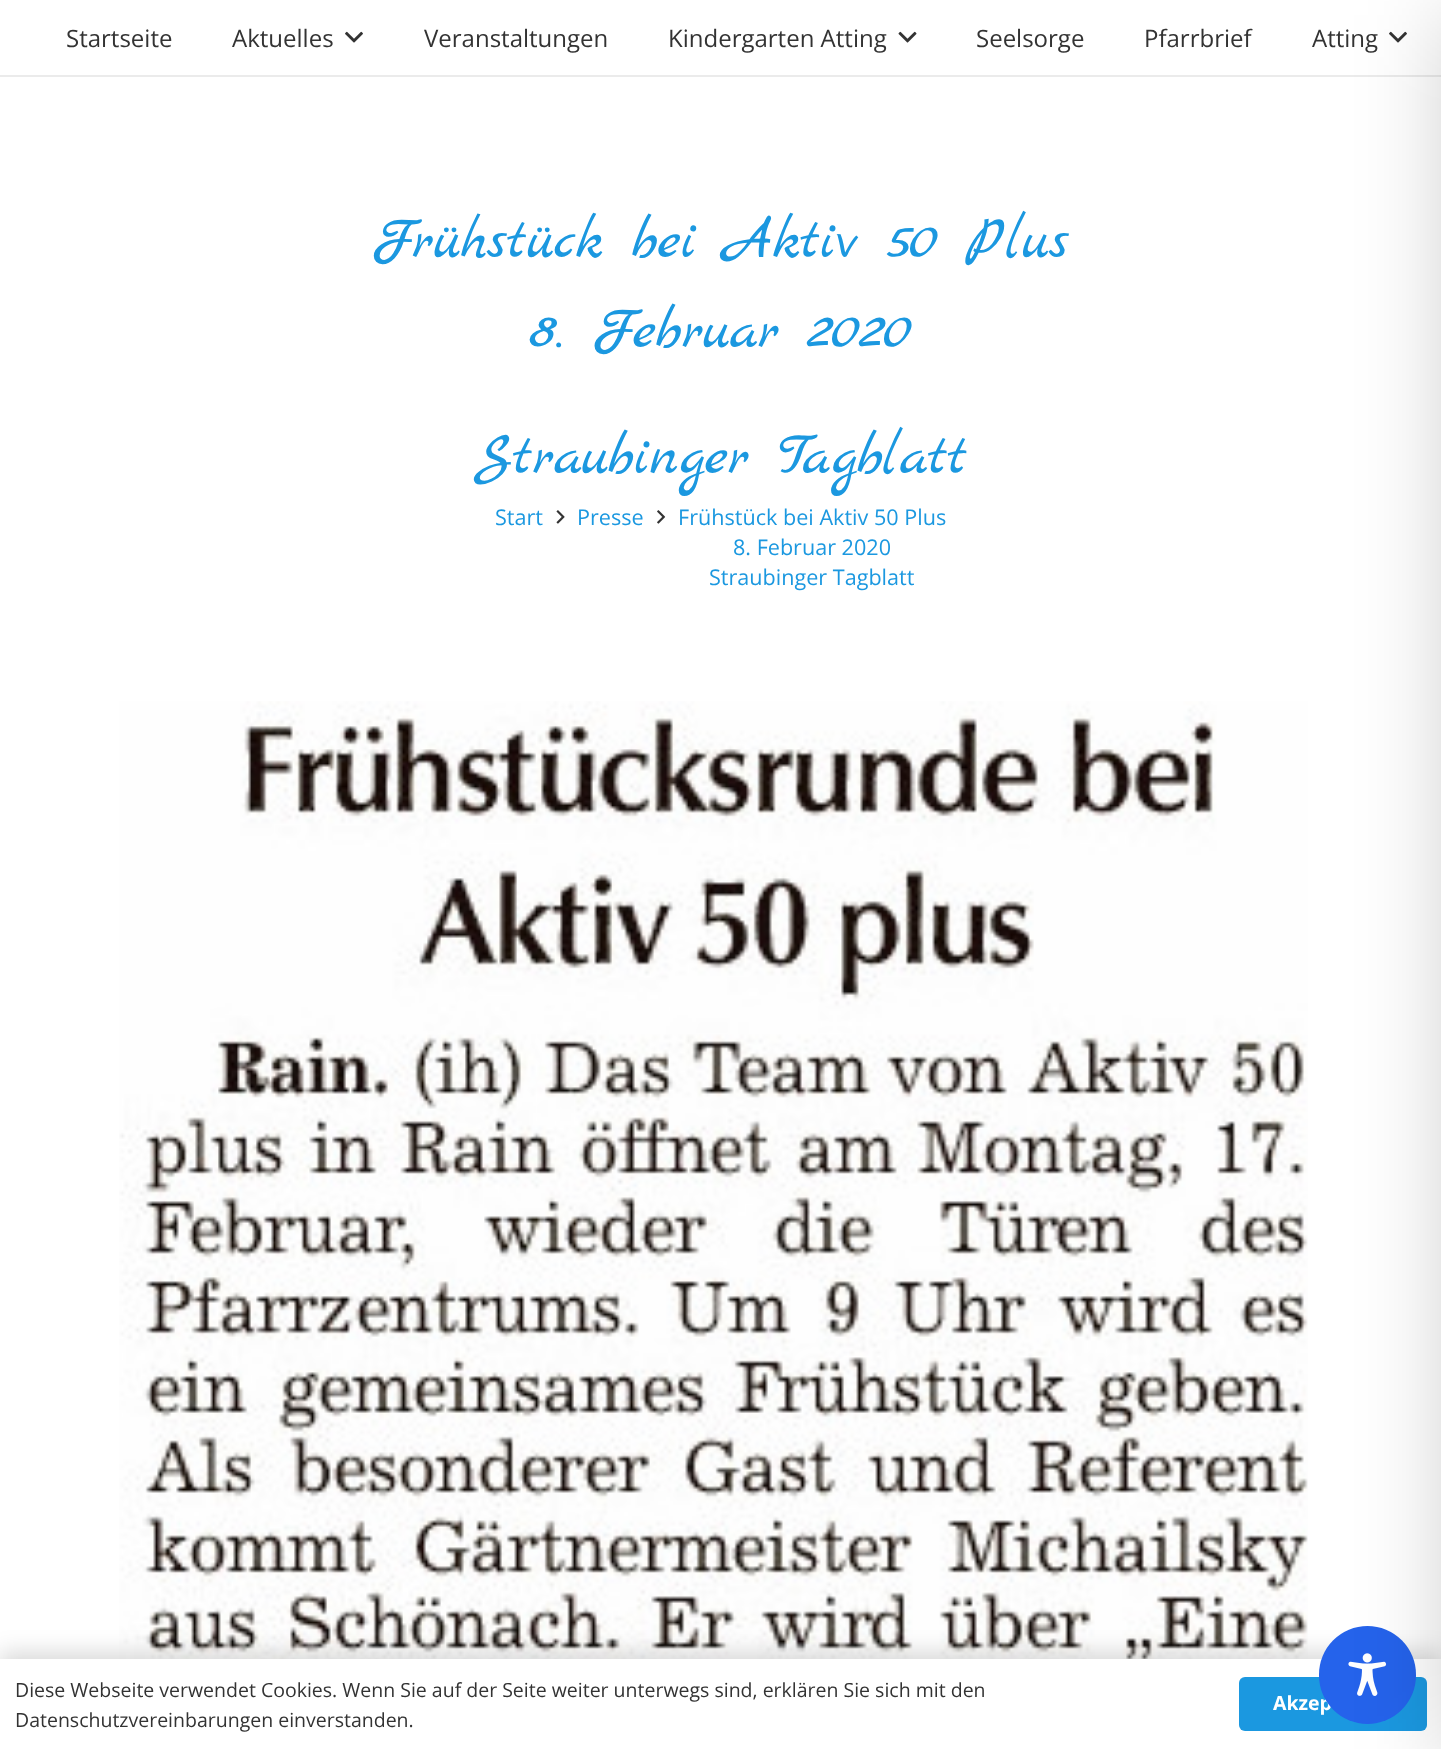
<!DOCTYPE html>
<meta charset="utf-8">
<style>body { margin: 0 } canvas { display: block }</style>
<canvas id="canvas" width="1441" height="1749"></canvas>
<img id="img1" src="images/1.png" hidden>
<img id="img2" src="images/2.png" hidden>
<img id="img3" src="images/3.png" hidden>
<img id="img4" src="images/4.png" hidden>
<img id="img5" src="images/5.png" hidden>
<img id="img6" src="images/6.png" hidden>
<script>
window.onload = function () {
    const canvas = document.getElementById('canvas');
    const context = canvas.getContext('2d');
    context.miterLimit = 4;
    context.fontKerning = 'normal';

    context.fillStyle = 'rgb(255, 255, 255)';
    context.fillRect(0, 0, 1441, 1749);
    context.fillStyle = 'rgb(235, 235, 235)';
    context.beginPath();
    context.moveTo(0, 75);
    context.lineTo(0, 77);
    context.lineTo(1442, 77);
    context.lineTo(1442, 2);
    context.lineTo(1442, 75);
    context.closePath();
    context.fill();
    context.drawImage(document.getElementById('img1'), 345, 31, 18, 12);
    context.drawImage(document.getElementById('img2'), 898, 31, 19, 12);
    context.drawImage(document.getElementById('img1'), 1389, 31, 18, 12);
    context.drawImage(document.getElementById('img3'), 556, 510, 9, 14);
    context.drawImage(document.getElementById('img4'), 657, 510, 9, 14);
    context.drawImage(document.getElementById('img5'), 119, 701, 1189, 958);
    context.fillStyle = 'rgba(0, 0, 0, 0.15)';
    context.filter = 'blur(11px)';
    context.beginPath();
    context.rect(0, 1652, 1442, 90);
    context.fill();
    context.filter = 'none';
    context.fillStyle = 'rgb(255, 255, 255)';
    context.fillRect(0, 1659, 1441, 90);
    context.fillStyle = 'rgb(27, 152, 224)';
    context.beginPath();
    context.roundRect(1239, 1677, 188, 54, 6);
    context.fill();
    context.font = '24px Open Sans';
    context.fillStyle = 'rgb(51, 51, 51)';
    context.fillText('Startseite', 66, 47);
    context.fillText('Aktuelles', 232, 47);
    context.fillText('Veranstaltungen', 424, 47);
    context.fillText('Kindergarten Atting', 668, 47);
    context.fillText('Seelsorge', 976, 47);
    context.fillText('Pfarrbrief', 1144, 47);
    context.fillText('Atting', 1312, 47);
    context.font = '60px Marck Script';
    context.fillStyle = 'rgb(27, 152, 224)';
    context.fillText('Frühstück bei Aktiv 50 Plus', 372, 257);
    context.fillText('8. Februar 2020', 530, 347);
    context.fillText('Straubinger Tagblatt', 475, 473);
    context.font = '21.6px Open Sans';
    context.fillText('Start', 495, 525);
    context.fillText('Presse', 577, 525);
    context.fillText('Frühstück bei Aktiv 50 Plus', 678, 525);
    context.fillText('8. Februar 2020', 733, 555);
    context.fillText('Straubinger Tagblatt', 709, 585);
    context.font = '19.5px Open Sans';
    context.fillStyle = 'rgb(51, 51, 51)';
    context.fillText('Diese Webseite verwendet Cookies. Wenn Sie auf der Seite weiter unterwegs sind, erklären Sie sich mit den', 15, 1697);
    context.fillText('Datenschutzvereinbarungen einverstanden.', 15, 1727);
    context.font = 'bold 19.5px Open Sans';
    context.fillStyle = 'rgb(255, 255, 255)';
    context.fillText('Akzep', 1273, 1710);
    context.fillStyle = 'rgb(37, 99, 235)';
    context.beginPath();
    context.roundRect(1319, 1626, 97, 98, 48.5);
    context.fill();
    context.drawImage(document.getElementById('img6'), 1348, 1653, 39, 43);
    context.fillStyle = 'rgba(0, 0, 0, 0.2)';
    context.filter = 'blur(45px)';
    context.beginPath();
    context.rect(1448, 15, 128, 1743);
    context.fill();
    context.filter = 'none';
};
</script>
